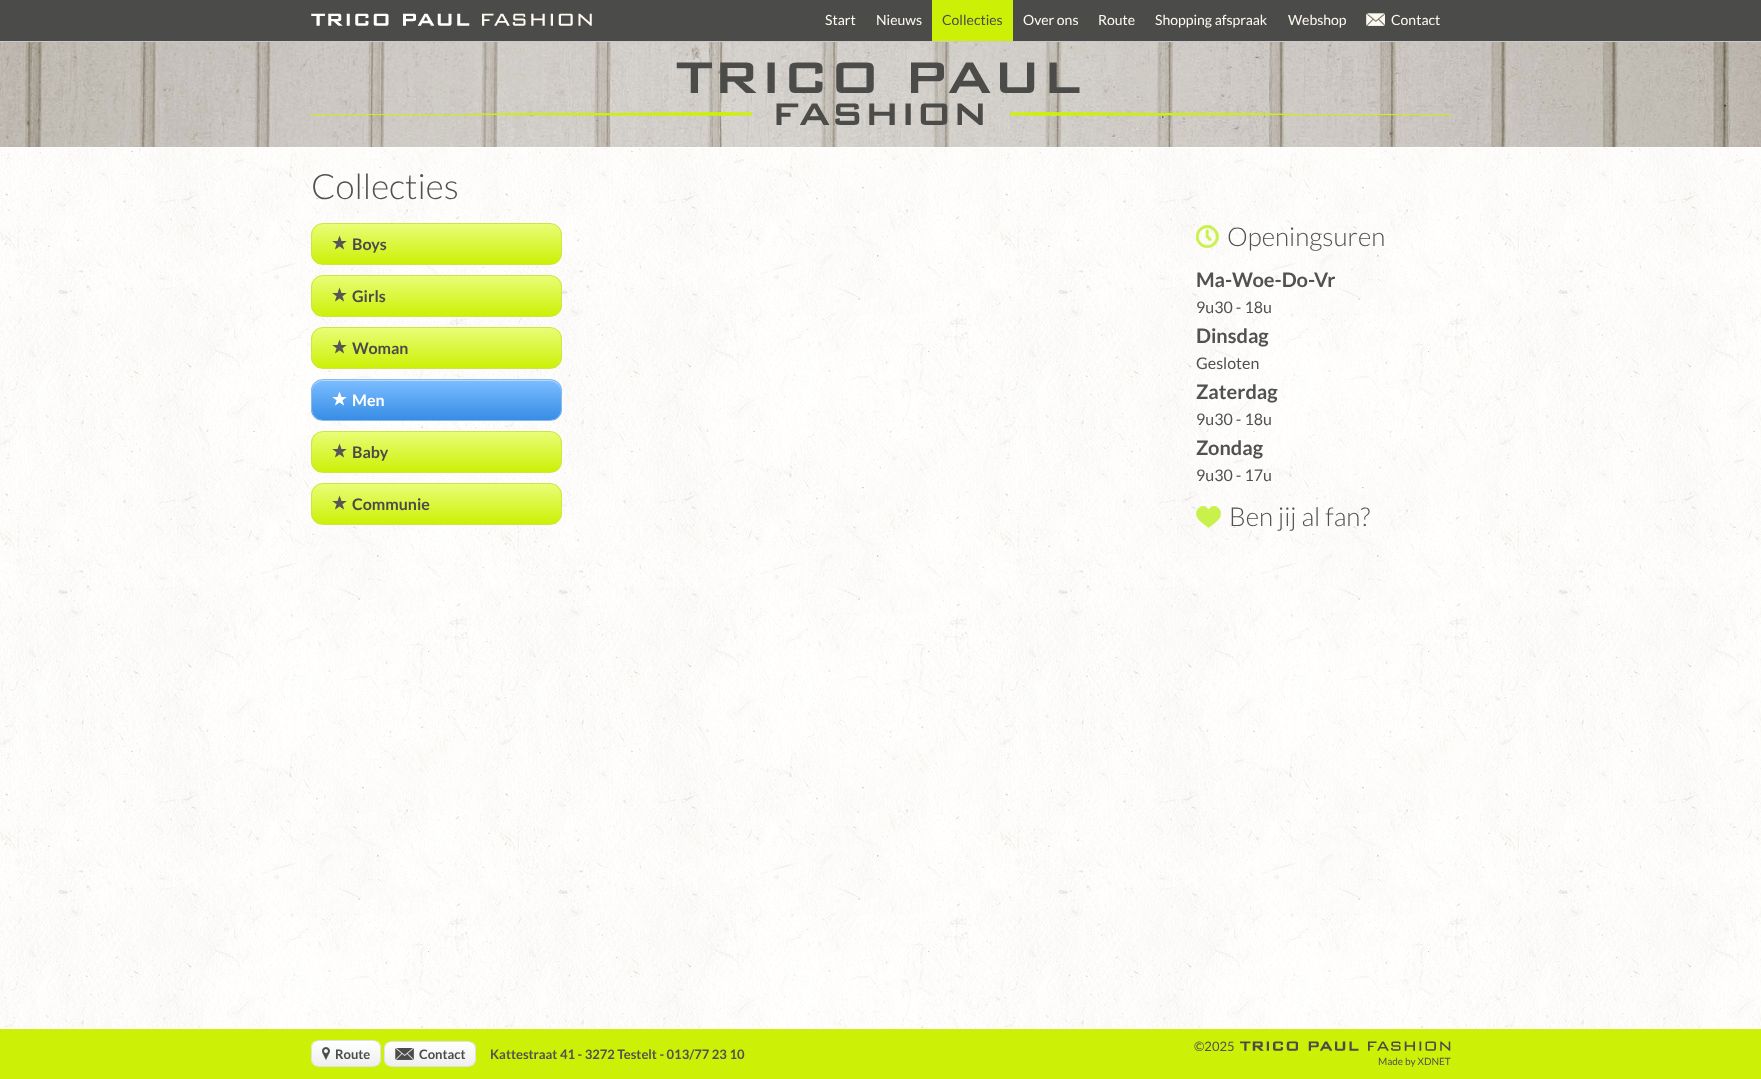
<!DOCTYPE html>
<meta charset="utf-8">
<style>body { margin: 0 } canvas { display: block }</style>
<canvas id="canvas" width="1761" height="1079"></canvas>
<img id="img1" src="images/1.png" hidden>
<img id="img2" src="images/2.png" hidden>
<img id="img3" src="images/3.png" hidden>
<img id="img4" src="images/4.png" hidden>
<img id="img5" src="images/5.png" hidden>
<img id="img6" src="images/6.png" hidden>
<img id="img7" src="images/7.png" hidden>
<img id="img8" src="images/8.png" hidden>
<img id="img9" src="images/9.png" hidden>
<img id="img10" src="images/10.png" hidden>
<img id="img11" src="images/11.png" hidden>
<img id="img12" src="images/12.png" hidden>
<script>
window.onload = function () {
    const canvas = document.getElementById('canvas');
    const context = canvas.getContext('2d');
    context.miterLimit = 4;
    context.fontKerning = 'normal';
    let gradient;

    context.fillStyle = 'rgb(255, 255, 255)';
    context.fillRect(0, 0, 1761, 1079);
    context.drawImage(document.getElementById('img1'), 0, 148, 1761, 880);
    context.fillStyle = 'rgb(75, 76, 74)';
    context.fillRect(0, 0, 1761, 41);
    context.fillStyle = 'rgb(202, 202, 202)';
    context.fillRect(0, 41, 1761, 1);
    context.drawImage(document.getElementById('img2'), 311, 13, 281, 13);
    context.fillStyle = 'rgb(204, 241, 7)';
    context.fillRect(932, 0, 81, 41);
    context.drawImage(document.getElementById('img3'), 1366, 13, 19, 13);
    context.drawImage(document.getElementById('img4'), 0, 42, 1761, 105);
    context.drawImage(document.getElementById('img5'), 311, 62, 1140, 63);
    context.save();
    context.beginPath();
    context.roundRect(311, 223, 251, 42, 12);
    context.clip();
    gradient = context.createLinearGradient(437, 224, 437, 264);
    gradient.addColorStop(0, 'rgb(233, 253, 119)');
    gradient.addColorStop(1, 'rgb(204, 241, 7)');
    context.fillStyle = gradient;
    context.fillRect(311, 224, 251, 40);
    context.restore();
    context.beginPath();
    context.roundRect(311.5, 223.5, 250, 41, 11.5);
    context.strokeStyle = 'rgb(205, 229, 69)';
    context.stroke();
    context.drawImage(document.getElementById('img6'), 332, 235, 15, 15);
    context.save();
    context.beginPath();
    context.roundRect(311, 275, 251, 42, 12);
    context.clip();
    gradient = context.createLinearGradient(437, 276, 437, 316);
    gradient.addColorStop(0, 'rgb(233, 253, 119)');
    gradient.addColorStop(1, 'rgb(204, 241, 7)');
    context.fillStyle = gradient;
    context.fillRect(311, 276, 251, 40);
    context.restore();
    context.beginPath();
    context.roundRect(311.5, 275.5, 250, 41, 11.5);
    context.stroke();
    context.drawImage(document.getElementById('img6'), 332, 287, 15, 15);
    context.save();
    context.beginPath();
    context.roundRect(311, 327, 251, 42, 12);
    context.clip();
    gradient = context.createLinearGradient(437, 328, 437, 368);
    gradient.addColorStop(0, 'rgb(233, 253, 119)');
    gradient.addColorStop(1, 'rgb(204, 241, 7)');
    context.fillStyle = gradient;
    context.fillRect(311, 328, 251, 40);
    context.restore();
    context.beginPath();
    context.roundRect(311.5, 327.5, 250, 41, 11.5);
    context.stroke();
    context.drawImage(document.getElementById('img6'), 332, 339, 15, 15);
    context.save();
    context.beginPath();
    context.roundRect(311, 379, 251, 42, 12);
    context.clip();
    gradient = context.createLinearGradient(312, 380, 312, 420);
    gradient.addColorStop(0.05, 'rgb(121, 187, 255)');
    gradient.addColorStop(1, 'rgb(55, 141, 229)');
    context.fillStyle = gradient;
    context.fillRect(311, 380, 251, 40);
    context.restore();
    context.fillStyle = 'rgb(187, 218, 247)';
    context.beginPath();
    context.moveTo(323, 381);
    context.lineTo(550, 381);
    context.bezierCurveTo(556, 381, 561, 386, 561, 392);
    context.lineTo(561, 391);
    context.bezierCurveTo(561, 385, 556, 380, 550, 380);
    context.lineTo(323, 380);
    context.bezierCurveTo(317, 380, 312, 385, 312, 391);
    context.lineTo(312, 392);
    context.bezierCurveTo(312, 386, 317, 381, 323, 381);
    context.closePath();
    context.fill();
    context.beginPath();
    context.roundRect(311.5, 379.5, 250, 41, 11.5);
    context.strokeStyle = 'rgb(132, 187, 243)';
    context.stroke();
    context.drawImage(document.getElementById('img7'), 332, 391, 15, 15);
    context.save();
    context.beginPath();
    context.roundRect(311, 431, 251, 42, 12);
    context.clip();
    gradient = context.createLinearGradient(437, 432, 437, 472);
    gradient.addColorStop(0, 'rgb(233, 253, 119)');
    gradient.addColorStop(1, 'rgb(204, 241, 7)');
    context.fillStyle = gradient;
    context.fillRect(311, 432, 251, 40);
    context.restore();
    context.beginPath();
    context.roundRect(311.5, 431.5, 250, 41, 11.5);
    context.strokeStyle = 'rgb(205, 229, 69)';
    context.stroke();
    context.drawImage(document.getElementById('img6'), 332, 443, 15, 15);
    context.save();
    context.beginPath();
    context.roundRect(311, 483, 251, 42, 12);
    context.clip();
    gradient = context.createLinearGradient(437, 484, 437, 524);
    gradient.addColorStop(0, 'rgb(233, 253, 119)');
    gradient.addColorStop(1, 'rgb(204, 241, 7)');
    context.fillStyle = gradient;
    context.fillRect(311, 484, 251, 40);
    context.restore();
    context.beginPath();
    context.roundRect(311.5, 483.5, 250, 41, 11.5);
    context.stroke();
    context.drawImage(document.getElementById('img6'), 332, 495, 15, 15);
    context.drawImage(document.getElementById('img8'), 1196, 225, 23, 23);
    context.drawImage(document.getElementById('img9'), 1196, 506, 25, 22);
    context.fillStyle = 'rgb(204, 241, 7)';
    context.fillRect(0, 1029, 1761, 50);
    context.save();
    context.beginPath();
    context.roundRect(311, 1040, 70, 27, 8);
    context.clip();
    gradient = context.createLinearGradient(346, 1041, 346, 1066);
    gradient.addColorStop(0, 'rgb(254, 255, 255)');
    gradient.addColorStop(1, 'rgb(239, 239, 239)');
    context.fillStyle = gradient;
    context.fillRect(311, 1041, 70, 25);
    context.restore();
    context.beginPath();
    context.roundRect(311.5, 1040.5, 69, 26, 7.5);
    context.strokeStyle = 'rgb(225, 225, 225)';
    context.stroke();
    context.drawImage(document.getElementById('img10'), 322, 1047, 8, 13);
    context.save();
    context.beginPath();
    context.roundRect(384, 1041, 92, 26, 8);
    context.clip();
    gradient = context.createLinearGradient(430, 1042, 430, 1066);
    gradient.addColorStop(0, 'rgb(254, 255, 255)');
    gradient.addColorStop(1, 'rgb(239, 239, 239)');
    context.fillStyle = gradient;
    context.fillRect(384, 1042, 92, 24);
    context.restore();
    context.beginPath();
    context.roundRect(384.5, 1041.5, 91, 25, 7.5);
    context.stroke();
    context.drawImage(document.getElementById('img11'), 395, 1048, 19, 12);
    context.drawImage(document.getElementById('img12'), 1240, 1041, 211, 10);
    context.font = '14px Lato';
    context.fillStyle = 'rgb(255, 250, 239)';
    context.fillText('Start', 825, 25);
    context.fillText('Nieuws', 876, 25);
    context.fillStyle = 'rgb(75, 76, 74)';
    context.fillText('Collecties', 942, 25);
    context.fillStyle = 'rgb(255, 250, 239)';
    context.fillText('Over ons', 1023, 25);
    context.fillText('Route', 1098, 25);
    context.fillText('Shopping afspraak', 1155, 25);
    context.fillText('Webshop', 1288, 25);
    context.fillText('Contact', 1391, 25);
    context.font = '300 35px Lato';
    context.fillStyle = 'rgb(81, 82, 80)';
    context.fillText('Collecties', 311, 199);
    context.font = 'bold 16px Lato';
    context.fillStyle = 'rgb(75, 76, 74)';
    context.fillText('Boys', 352, 250);
    context.fillText('Girls', 352, 302);
    context.fillText('Woman', 352, 354);
    context.fillStyle = 'rgb(255, 255, 255)';
    context.fillText('Men', 352, 406);
    context.fillStyle = 'rgb(75, 76, 74)';
    context.fillText('Baby', 352, 458);
    context.fillText('Communie', 352, 510);
    context.font = '300 26px Lato';
    context.fillStyle = 'rgb(81, 82, 80)';
    context.fillText('Openingsuren', 1227, 246);
    context.font = 'bold 20px Lato';
    context.fillText('Ma-Woe-Do-Vr', 1196, 287);
    context.font = '16px Lato';
    context.fillText('9u30 - 18u', 1196, 313);
    context.font = 'bold 20px Lato';
    context.fillText('Dinsdag', 1196, 343);
    context.font = '16px Lato';
    context.fillText('Gesloten', 1196, 369);
    context.font = 'bold 20px Lato';
    context.fillText('Zaterdag', 1196, 399);
    context.font = '16px Lato';
    context.fillText('9u30 - 18u', 1196, 425);
    context.font = 'bold 20px Lato';
    context.fillText('Zondag', 1196, 455);
    context.font = '16px Lato';
    context.fillText('9u30 - 17u', 1196, 481);
    context.font = '300 26px Lato';
    context.fillText('Ben jij al fan?', 1229, 526);
    context.font = 'bold 13px Lato';
    context.fillStyle = 'rgb(75, 76, 74)';
    context.fillText('Route', 335, 1059);
    context.fillText('Contact', 419, 1059);
    context.fillStyle = 'rgb(81, 82, 80)';
    context.fillText('Kattestraat 41 - 3272 Testelt - 013/77 23 10', 490, 1059);
    context.font = '13px Lato';
    context.fillText('©2025', 1194, 1051);
    context.font = '10px Lato';
    context.fillText('Made by XDNET', 1378, 1065);
};
</script>
